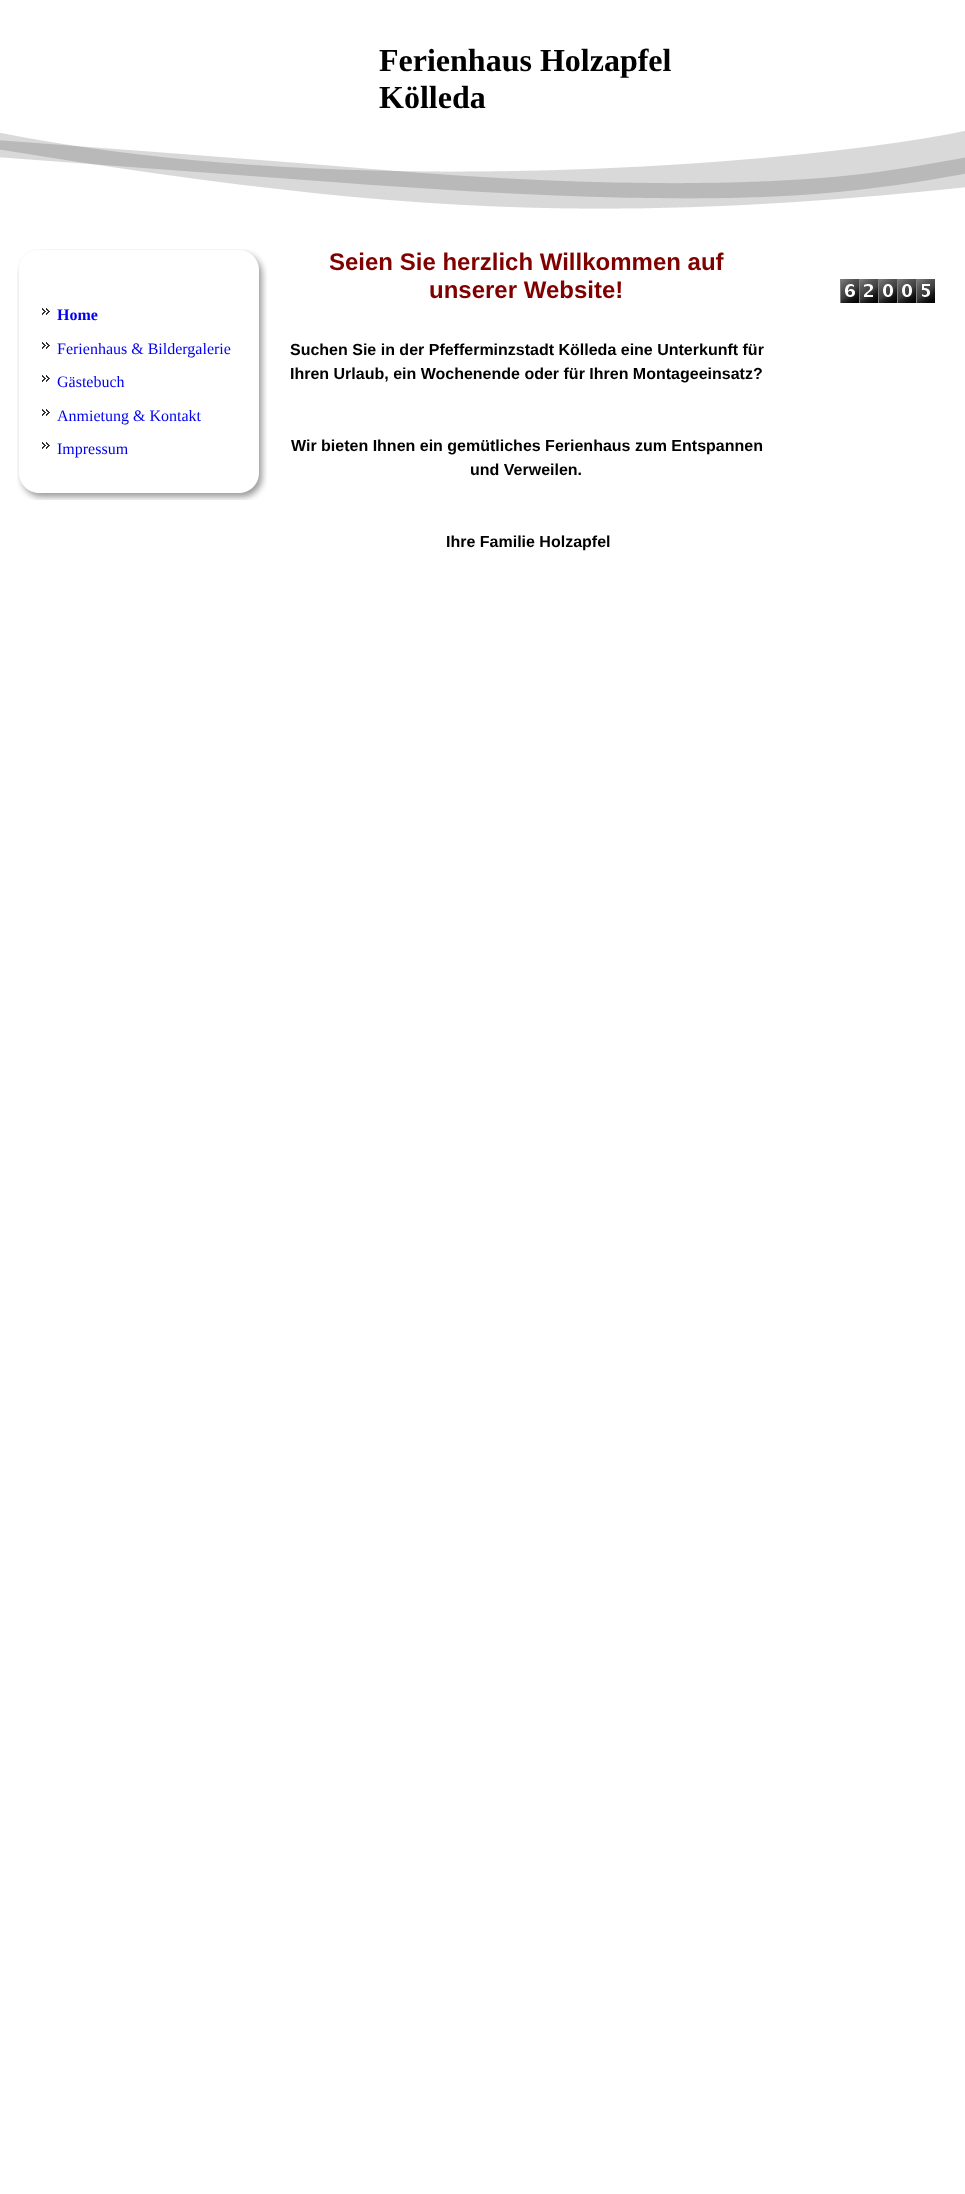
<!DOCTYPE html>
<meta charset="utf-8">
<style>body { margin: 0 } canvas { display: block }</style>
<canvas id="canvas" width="965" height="2194"></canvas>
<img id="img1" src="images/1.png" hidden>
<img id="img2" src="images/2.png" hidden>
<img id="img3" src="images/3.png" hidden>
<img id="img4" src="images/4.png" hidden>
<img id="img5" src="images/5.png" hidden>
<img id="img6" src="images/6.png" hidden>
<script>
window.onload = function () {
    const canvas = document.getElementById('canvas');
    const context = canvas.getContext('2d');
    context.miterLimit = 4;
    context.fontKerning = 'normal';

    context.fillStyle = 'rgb(255, 255, 255)';
    context.fillRect(0, 0, 965, 2194);
    context.drawImage(document.getElementById('img1'), 0, 131, 965, 78);
    context.drawImage(document.getElementById('img2'), 840, 279, 95, 24);
    context.drawImage(document.getElementById('img3'), 17, 249, 250, 28);
    context.drawImage(document.getElementById('img4'), 17, 277, 250, 193);
    context.drawImage(document.getElementById('img5'), 42, 308, 8, 7);
    context.drawImage(document.getElementById('img5'), 42, 342, 8, 7);
    context.drawImage(document.getElementById('img5'), 42, 375, 8, 7);
    context.drawImage(document.getElementById('img5'), 42, 409, 8, 7);
    context.drawImage(document.getElementById('img5'), 42, 442, 8, 7);
    context.drawImage(document.getElementById('img6'), 17, 470, 250, 30);
    context.font = 'bold 32px Liberation Serif';
    context.fillStyle = 'rgb(0, 0, 0)';
    context.fillText('Ferienhaus Holzapfel', 379, 71);
    context.fillText('Kölleda', 379, 108);
    context.font = 'bold 24px Liberation Sans';
    context.fillStyle = 'rgb(128, 0, 0)';
    context.fillText('Seien Sie herzlich Willkommen auf', 329, 270);
    context.fillText('unserer Website!', 429, 298);
    context.font = 'bold 16px Liberation Sans';
    context.fillStyle = 'rgb(0, 0, 0)';
    context.fillText('Suchen Sie in der Pfefferminzstadt Kölleda eine Unterkunft für', 290, 355);
    context.fillText('Ihren Urlaub, ein Wochenende oder für Ihren Montageeinsatz?', 290, 379);
    context.fillText('Wir bieten Ihnen ein gemütliches Ferienhaus zum Entspannen', 291, 451);
    context.fillText('und Verweilen.', 470, 475);
    context.fillText('Ihre Familie Holzapfel', 446, 547);
    context.font = 'bold 16px Liberation Serif';
    context.fillStyle = 'rgb(0, 0, 238)';
    context.fillText('Home', 57, 320);
    context.font = '16px Liberation Serif';
    context.fillText('Ferienhaus & Bildergalerie', 57, 354);
    context.fillText('Gästebuch', 57, 387);
    context.fillText('Anmietung & Kontakt', 57, 421);
    context.fillText('Impressum', 57, 454);
};
</script>
